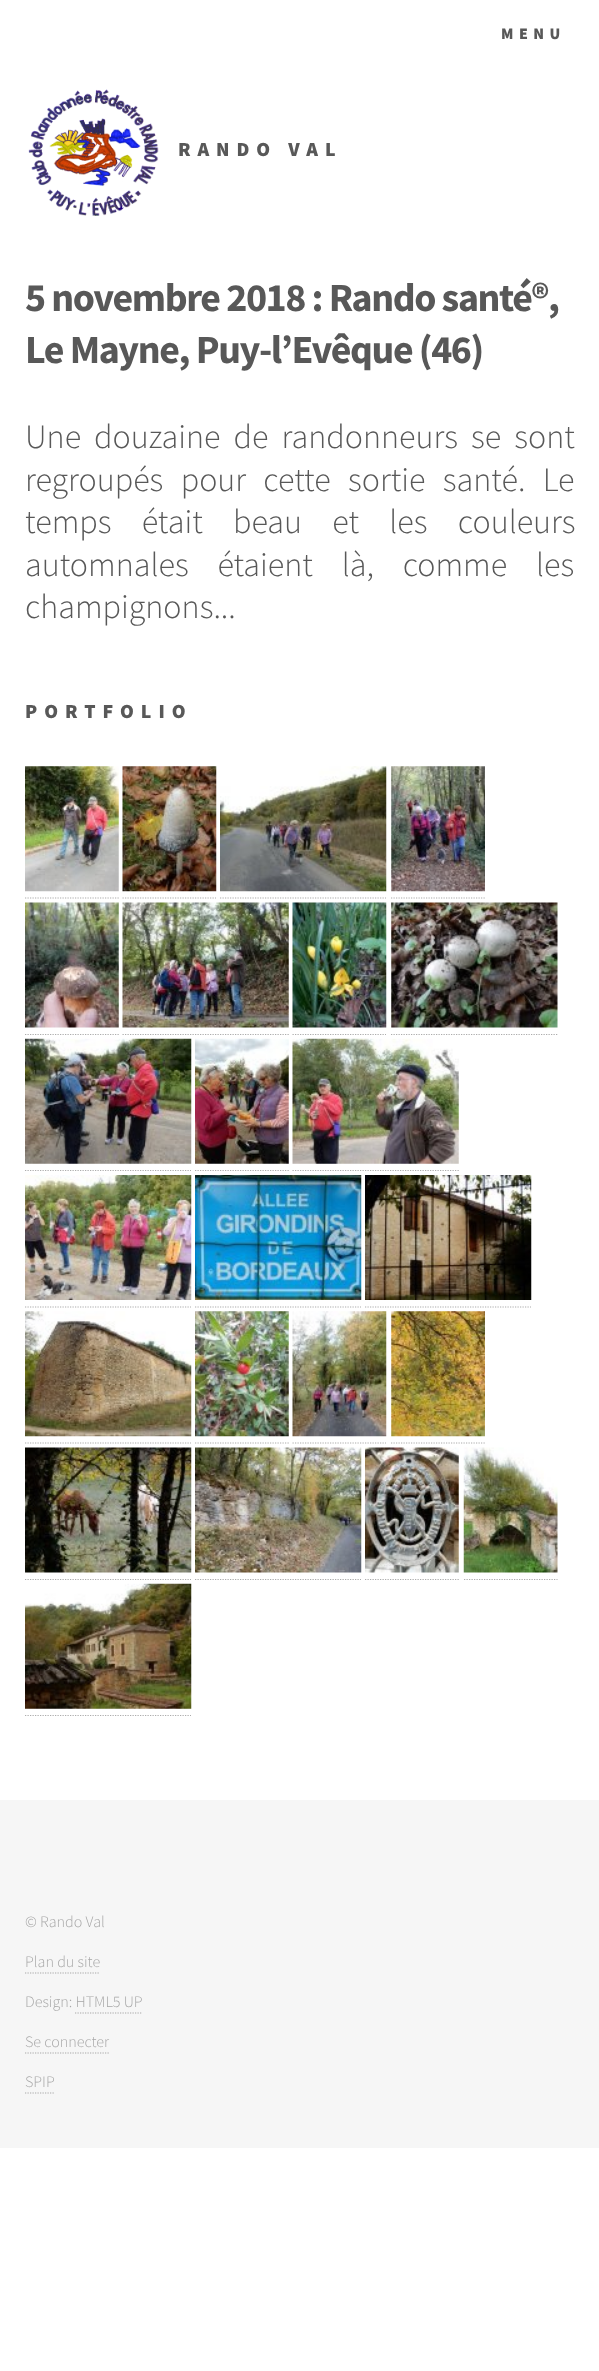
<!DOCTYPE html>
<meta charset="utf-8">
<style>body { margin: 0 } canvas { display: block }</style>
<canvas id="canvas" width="599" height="2371"></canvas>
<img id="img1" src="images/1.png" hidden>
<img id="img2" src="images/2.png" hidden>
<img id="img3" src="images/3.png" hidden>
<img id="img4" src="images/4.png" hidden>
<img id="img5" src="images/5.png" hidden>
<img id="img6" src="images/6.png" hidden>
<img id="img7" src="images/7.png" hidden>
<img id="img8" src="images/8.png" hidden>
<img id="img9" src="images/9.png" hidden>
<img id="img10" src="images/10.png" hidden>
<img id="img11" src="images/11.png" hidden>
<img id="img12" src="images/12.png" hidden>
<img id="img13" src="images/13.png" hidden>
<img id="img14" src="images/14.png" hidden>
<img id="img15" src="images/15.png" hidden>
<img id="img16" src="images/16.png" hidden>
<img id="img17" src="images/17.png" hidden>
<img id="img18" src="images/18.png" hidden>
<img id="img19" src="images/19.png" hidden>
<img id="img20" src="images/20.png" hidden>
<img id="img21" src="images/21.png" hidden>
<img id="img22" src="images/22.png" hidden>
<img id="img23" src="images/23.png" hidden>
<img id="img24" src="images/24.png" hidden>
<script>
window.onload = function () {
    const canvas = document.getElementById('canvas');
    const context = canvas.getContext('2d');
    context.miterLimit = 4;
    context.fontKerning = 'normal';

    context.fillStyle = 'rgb(255, 255, 255)';
    context.fillRect(0, 0, 599, 2371);
    context.drawImage(document.getElementById('img1'), 28, 89, 131, 127);
    context.drawImage(document.getElementById('img2'), 25, 766, 94, 126);
    context.drawImage(document.getElementById('img3'), 122, 766, 95, 126);
    context.drawImage(document.getElementById('img4'), 220, 766, 167, 126);
    context.drawImage(document.getElementById('img5'), 391, 766, 94, 126);
    context.beginPath();
    context.moveTo(25, 898);
    context.lineTo(119, 898);
    context.strokeStyle = 'rgb(172, 172, 172)';
    context.lineWidth = 1.2;
    context.setLineDash([1.25, 1.25]);
    context.stroke();
    context.beginPath();
    context.moveTo(122.5, 898);
    context.lineTo(216, 898);
    context.stroke();
    context.beginPath();
    context.moveTo(220, 898);
    context.lineTo(386, 898);
    context.stroke();
    context.beginPath();
    context.moveTo(391, 898);
    context.lineTo(485, 898);
    context.stroke();
    context.drawImage(document.getElementById('img6'), 25, 902, 94, 126);
    context.drawImage(document.getElementById('img7'), 122, 902, 167, 126);
    context.drawImage(document.getElementById('img8'), 292, 902, 95, 126);
    context.drawImage(document.getElementById('img9'), 391, 902, 167, 126);
    context.beginPath();
    context.moveTo(25, 1034.5);
    context.lineTo(119, 1034.5);
    context.stroke();
    context.beginPath();
    context.moveTo(122.5, 1034.5);
    context.lineTo(289, 1034.5);
    context.stroke();
    context.beginPath();
    context.moveTo(292.5, 1034.5);
    context.lineTo(386, 1034.5);
    context.stroke();
    context.beginPath();
    context.moveTo(391, 1034.5);
    context.lineTo(557.5, 1034.5);
    context.stroke();
    context.drawImage(document.getElementById('img10'), 25, 1038, 167, 126);
    context.drawImage(document.getElementById('img11'), 195, 1038, 94, 126);
    context.drawImage(document.getElementById('img12'), 292, 1038, 167, 126);
    context.beginPath();
    context.moveTo(25, 1170.5);
    context.lineTo(191, 1170.5);
    context.stroke();
    context.beginPath();
    context.moveTo(195, 1170.5);
    context.lineTo(289, 1170.5);
    context.stroke();
    context.beginPath();
    context.moveTo(292.5, 1170.5);
    context.lineTo(459, 1170.5);
    context.stroke();
    context.drawImage(document.getElementById('img13'), 25, 1175, 167, 125);
    context.drawImage(document.getElementById('img14'), 195, 1175, 167, 125);
    context.drawImage(document.getElementById('img15'), 365, 1175, 167, 125);
    context.beginPath();
    context.moveTo(25, 1307);
    context.lineTo(191, 1307);
    context.stroke();
    context.beginPath();
    context.moveTo(195, 1307);
    context.lineTo(361, 1307);
    context.stroke();
    context.beginPath();
    context.moveTo(365, 1307);
    context.lineTo(531, 1307);
    context.stroke();
    context.drawImage(document.getElementById('img16'), 25, 1311, 167, 126);
    context.drawImage(document.getElementById('img17'), 195, 1311, 94, 126);
    context.drawImage(document.getElementById('img18'), 292, 1311, 95, 126);
    context.drawImage(document.getElementById('img19'), 391, 1311, 94, 126);
    context.beginPath();
    context.moveTo(25, 1443);
    context.lineTo(191, 1443);
    context.stroke();
    context.beginPath();
    context.moveTo(195, 1443);
    context.lineTo(289, 1443);
    context.stroke();
    context.beginPath();
    context.moveTo(292.5, 1443);
    context.lineTo(386, 1443);
    context.stroke();
    context.beginPath();
    context.moveTo(391, 1443);
    context.lineTo(485, 1443);
    context.stroke();
    context.drawImage(document.getElementById('img20'), 25, 1447, 167, 126);
    context.drawImage(document.getElementById('img21'), 195, 1447, 167, 126);
    context.drawImage(document.getElementById('img22'), 365, 1447, 94, 126);
    context.drawImage(document.getElementById('img23'), 463, 1447, 95, 126);
    context.beginPath();
    context.moveTo(25, 1579.5);
    context.lineTo(191, 1579.5);
    context.stroke();
    context.beginPath();
    context.moveTo(195, 1579.5);
    context.lineTo(361, 1579.5);
    context.stroke();
    context.beginPath();
    context.moveTo(365, 1579.5);
    context.lineTo(459, 1579.5);
    context.stroke();
    context.beginPath();
    context.moveTo(464, 1579.5);
    context.lineTo(557.5, 1579.5);
    context.stroke();
    context.drawImage(document.getElementById('img24'), 25, 1583, 167, 126);
    context.beginPath();
    context.moveTo(25, 1715.5);
    context.lineTo(191, 1715.5);
    context.stroke();
    context.fillStyle = 'rgb(246, 246, 246)';
    context.fillRect(0, 1800, 599, 348);
    context.beginPath();
    context.moveTo(25, 1973);
    context.lineTo(100, 1973);
    context.strokeStyle = 'rgb(167, 167, 167)';
    context.stroke();
    context.beginPath();
    context.moveTo(75, 2013);
    context.lineTo(142.5, 2013);
    context.stroke();
    context.beginPath();
    context.moveTo(25, 2053);
    context.lineTo(109, 2053);
    context.stroke();
    context.beginPath();
    context.moveTo(25, 2093);
    context.lineTo(55, 2093);
    context.stroke();
    context.letterSpacing = '5.5px';
    context.font = '900 16px Source Sans Pro';
    context.fillStyle = 'rgb(88, 88, 88)';
    context.fillText('MENU', 501, 39);
    context.letterSpacing = '7px';
    context.font = '900 20px Source Sans Pro';
    context.fillText('RANDO VAL', 178, 156);
    context.letterSpacing = '-1.4px';
    context.font = 'bold 40px Source Sans Pro';
    context.fillText('5 novembre 2018 : Rando santé®,', 25, 311);
    context.fillText('Le Mayne, Puy-l’Evêque (46)', 25, 363);
    context.letterSpacing = '0px';
    context.wordSpacing = '6.25px';
    context.font = '300 34px Source Sans Pro';
    context.fillText('Une douzaine de randonneurs se sont', 25, 448);
    context.wordSpacing = '10.5px';
    context.fillText('regroupés pour cette sortie santé. Le', 25, 491);
    context.wordSpacing = '23.5px';
    context.fillText('temps était beau et les couleurs', 25, 533);
    context.wordSpacing = '22px';
    context.fillText('automnales étaient là, comme les', 25, 576);
    context.wordSpacing = '0px';
    context.fillText('champignons...', 25, 618);
    context.letterSpacing = '7px';
    context.font = '900 20px Source Sans Pro';
    context.fillText('PORTFOLIO', 25, 718);
    context.letterSpacing = '0px';
    context.font = '300 16px Source Sans Pro';
    context.fillStyle = 'rgb(167, 167, 167)';
    context.fillText('© Rando Val', 25, 1927);
    context.fillText('Plan du site', 25, 1967);
    context.fillText('Design: HTML5 UP', 25, 2007);
    context.fillText('Se connecter', 25, 2047);
    context.fillText('SPIP', 25, 2087);
};
</script>
